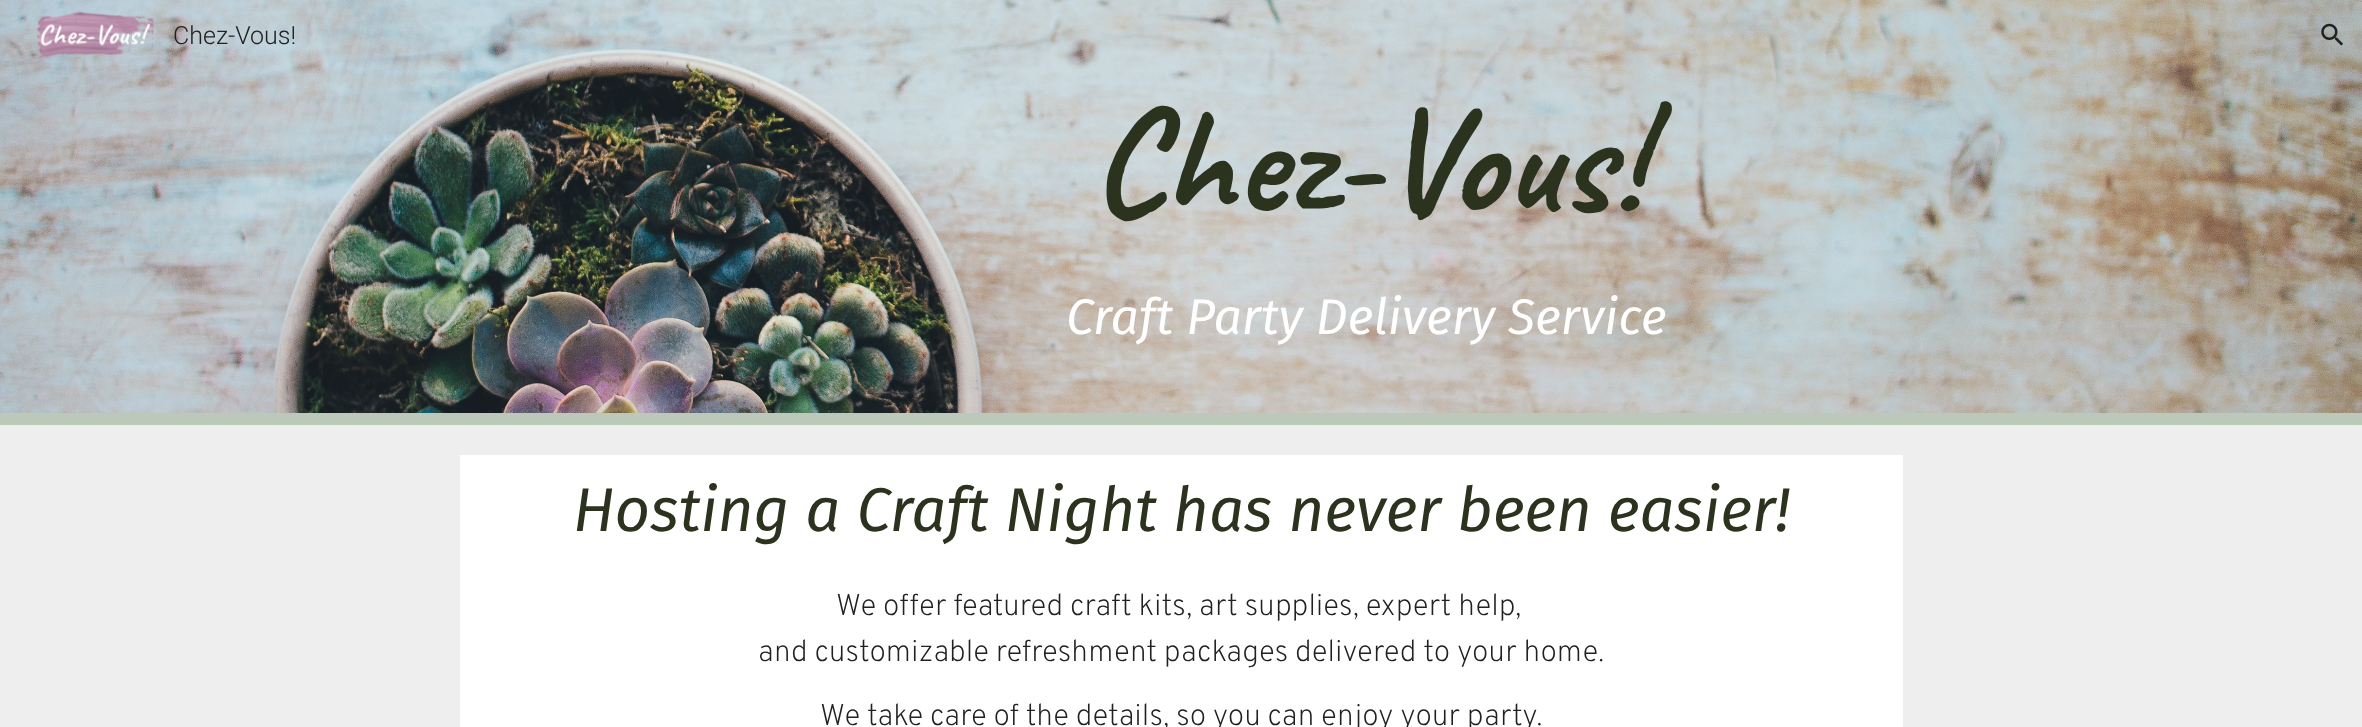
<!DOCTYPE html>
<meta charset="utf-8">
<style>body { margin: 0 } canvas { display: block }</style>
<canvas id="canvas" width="2362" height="727"></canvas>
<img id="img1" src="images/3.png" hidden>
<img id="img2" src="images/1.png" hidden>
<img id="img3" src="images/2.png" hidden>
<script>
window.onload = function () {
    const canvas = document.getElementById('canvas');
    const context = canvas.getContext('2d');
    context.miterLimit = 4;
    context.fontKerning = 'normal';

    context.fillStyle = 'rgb(237, 238, 237)';
    context.fillRect(0, 0, 2362, 727);
    context.drawImage(document.getElementById('img1'), 0, 0, 2362, 413);
    context.drawImage(document.getElementById('img2'), 36, 11, 118, 47);
    context.drawImage(document.getElementById('img3'), 2321, 23, 22, 23);
    context.fillStyle = 'rgb(187, 200, 186)';
    context.fillRect(0, 413, 2362, 12);
    context.fillStyle = 'rgb(255, 255, 255)';
    context.fillRect(460, 455, 1443, 272);
    context.font = '300 25px Roboto';
    context.fillStyle = 'rgb(33, 33, 33)';
    context.fillText('Chez-Vous!', 173, 44);
    context.font = 'bold 150px Caveat';
    context.fillStyle = 'rgb(43, 51, 31)';
    context.fillText('Chez-Vous!', 1091, 211);
    context.font = 'italic 50px Fira Sans';
    context.fillStyle = 'rgb(255, 255, 255)';
    context.fillText('Craft Party Delivery Service', 1066, 334);
    context.font = 'italic 61.7px Fira Sans';
    context.fillStyle = 'rgb(43, 51, 31)';
    context.fillText('Hosting a Craft Night has never been easier!', 573, 531);
    context.font = '200 30px Overpass';
    context.fillStyle = 'rgb(33, 33, 33)';
    context.fillText('We offer featured craft kits, art supplies, expert help,', 836, 615);
    context.fillText('and customizable refreshment packages delivered to your home.', 758, 661);
    context.fillText('We take care of the details, so you can enjoy your party.', 820, 725);
};
</script>
